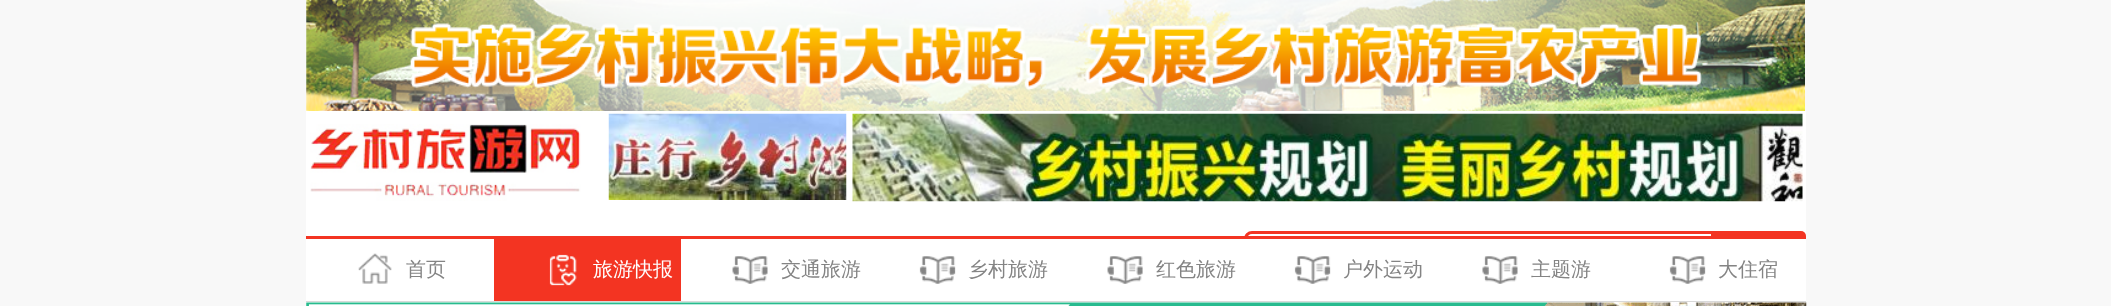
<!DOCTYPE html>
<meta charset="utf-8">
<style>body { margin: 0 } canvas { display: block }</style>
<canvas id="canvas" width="2111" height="306"></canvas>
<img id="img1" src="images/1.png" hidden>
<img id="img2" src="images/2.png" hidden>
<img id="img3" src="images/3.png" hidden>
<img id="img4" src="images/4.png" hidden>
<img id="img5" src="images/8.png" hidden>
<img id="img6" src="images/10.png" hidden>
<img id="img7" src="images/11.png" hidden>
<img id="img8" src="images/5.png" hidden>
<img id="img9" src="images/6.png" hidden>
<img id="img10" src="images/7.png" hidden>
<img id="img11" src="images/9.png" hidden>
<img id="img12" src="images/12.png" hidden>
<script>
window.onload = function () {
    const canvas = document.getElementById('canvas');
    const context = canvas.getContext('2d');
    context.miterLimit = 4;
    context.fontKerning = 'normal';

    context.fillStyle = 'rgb(248, 248, 248)';
    context.fillRect(0, 0, 2111, 306);
    context.drawImage(document.getElementById('img1'), 306, 0, 1499, 111);
    context.fillStyle = 'rgb(255, 255, 255)';
    context.fillRect(306, 111, 1500, 125);
    context.drawImage(document.getElementById('img2'), 310, 124, 271, 77);
    context.drawImage(document.getElementById('img3'), 608, 113, 239, 87);
    context.drawImage(document.getElementById('img4'), 852, 113, 951, 89);
    context.beginPath();
    context.roundRect(1244, 231, 470, 5, [8, 0, 0, 0]);
    context.fill();
    context.fillRect(306, 239, 1500, 64);
    context.fillStyle = 'rgb(243, 52, 34)';
    context.fillRect(306, 236, 1500, 3);
    context.drawImage(document.getElementById('img5'), 1294, 256, 37, 28);
    context.drawImage(document.getElementById('img6'), 1482, 256, 36, 28);
    context.drawImage(document.getElementById('img7'), 1669, 256, 37, 28);
    context.save();
    context.beginPath();
    context.rect(1244, 231, 562, 5);
    context.clip();
    context.beginPath();
    context.roundRect(1245.5, 232.5, 467, 55, [6.5, 0, 0, 6.5]);
    context.strokeStyle = 'rgb(243, 52, 34)';
    context.lineWidth = 3;
    context.stroke();
    context.restore();
    context.beginPath();
    context.roundRect(1714, 231, 92, 5, [0, 8, 0, 0]);
    context.fill();
    context.fillStyle = 'rgb(217, 217, 217)';
    context.fillRect(306, 301, 1500, 1);
    context.drawImage(document.getElementById('img8'), 358, 253, 34, 31);
    context.fillStyle = 'rgb(243, 52, 34)';
    context.fillRect(494, 239, 187, 62);
    context.drawImage(document.getElementById('img9'), 549, 254, 28, 32);
    context.drawImage(document.getElementById('img10'), 732, 256, 36, 28);
    context.drawImage(document.getElementById('img5'), 919, 256, 37, 28);
    context.drawImage(document.getElementById('img11'), 1107, 256, 36, 28);
    context.drawImage(document.getElementById('img12'), 306, 302, 1501, 4);
    context.font = '500 20px WenQuanYi Zen Hei';
    context.fillStyle = 'rgb(132, 132, 132)';
    context.fillText('首页', 406, 276);
    context.fillStyle = 'rgb(255, 255, 255)';
    context.fillText('旅游快报', 593, 276);
    context.fillStyle = 'rgb(132, 132, 132)';
    context.fillText('交通旅游', 781, 276);
    context.fillText('乡村旅游', 968, 276);
    context.fillText('红色旅游', 1156, 276);
    context.fillText('户外运动', 1343, 276);
    context.fillText('主题游', 1531, 276);
    context.fillText('大住宿', 1718, 276);
};
</script>
